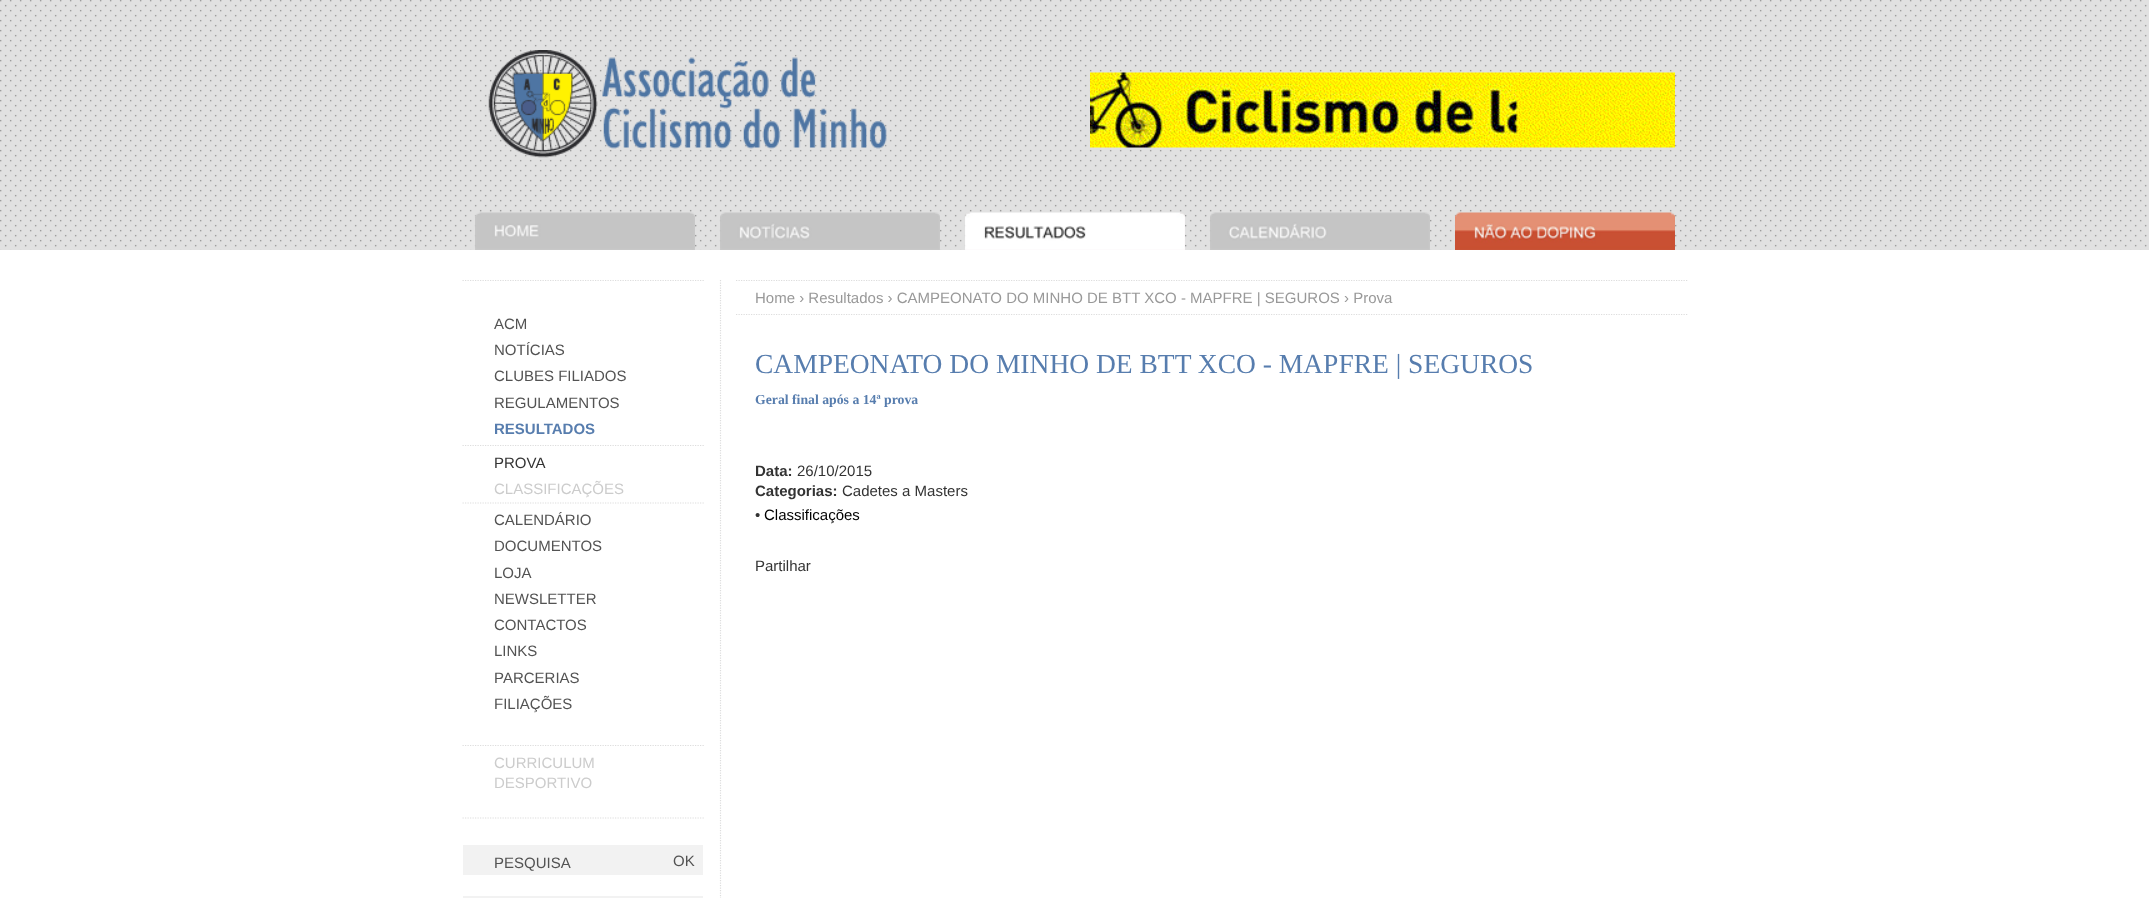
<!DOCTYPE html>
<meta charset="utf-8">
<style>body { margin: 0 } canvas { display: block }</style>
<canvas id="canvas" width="2149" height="898"></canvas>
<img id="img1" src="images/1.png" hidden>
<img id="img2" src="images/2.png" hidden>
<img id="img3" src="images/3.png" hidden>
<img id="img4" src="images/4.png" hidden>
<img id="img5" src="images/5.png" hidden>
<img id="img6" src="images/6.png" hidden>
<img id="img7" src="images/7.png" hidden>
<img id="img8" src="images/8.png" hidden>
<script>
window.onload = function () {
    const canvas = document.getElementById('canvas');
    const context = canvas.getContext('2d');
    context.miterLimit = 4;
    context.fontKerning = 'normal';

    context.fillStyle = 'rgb(255, 255, 255)';
    context.fillRect(0, 0, 2149, 898);
    context.drawImage(document.getElementById('img1'), 0, 0, 2149, 250);
    context.drawImage(document.getElementById('img2'), 488, 50, 399, 108);
    context.drawImage(document.getElementById('img3'), 1090, 72, 585, 76);
    context.drawImage(document.getElementById('img4'), 475, 212, 220, 38);
    context.drawImage(document.getElementById('img5'), 720, 212, 220, 38);
    context.drawImage(document.getElementById('img6'), 965, 212, 220, 38);
    context.drawImage(document.getElementById('img7'), 1210, 212, 220, 38);
    context.drawImage(document.getElementById('img8'), 1455, 212, 220, 38);
    context.beginPath();
    context.moveTo(462.5, 280.5);
    context.lineTo(705, 280.5);
    context.strokeStyle = 'rgb(221, 221, 221)';
    context.lineWidth = 1.2;
    context.setLineDash([1.25, 1.25]);
    context.stroke();
    context.beginPath();
    context.moveTo(462.5, 445.5);
    context.lineTo(705, 445.5);
    context.stroke();
    context.beginPath();
    context.moveTo(462.5, 503);
    context.lineTo(705, 503);
    context.stroke();
    context.beginPath();
    context.moveTo(462.5, 745.5);
    context.lineTo(705, 745.5);
    context.stroke();
    context.beginPath();
    context.moveTo(462.5, 818);
    context.lineTo(705, 818);
    context.stroke();
    context.fillStyle = 'rgb(242, 242, 242)';
    context.fillRect(463, 845, 240, 30);
    context.fillRect(463, 896, 240, 2);
    context.beginPath();
    context.moveTo(720.5, 280);
    context.lineTo(720.5, 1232.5);
    context.stroke();
    context.beginPath();
    context.moveTo(736, 280.5);
    context.lineTo(1687.5, 280.5);
    context.stroke();
    context.beginPath();
    context.moveTo(736, 314.5);
    context.lineTo(1687.5, 314.5);
    context.stroke();
    context.font = '15px Liberation Sans';
    context.fillStyle = 'rgb(83, 83, 83)';
    context.fillText('ACM', 494, 329);
    context.fillText('NOTÍCIAS', 494, 355);
    context.fillText('CLUBES FILIADOS', 494, 381);
    context.fillText('REGULAMENTOS', 494, 408);
    context.font = 'bold 15px Liberation Sans';
    context.fillStyle = 'rgb(87, 125, 174)';
    context.fillText('RESULTADOS', 494, 434);
    context.font = '15px Liberation Sans';
    context.fillStyle = 'rgb(51, 51, 51)';
    context.fillText('PROVA', 494, 468);
    context.fillStyle = 'rgb(204, 204, 204)';
    context.fillText('CLASSIFICAÇÕES', 494, 494);
    context.fillStyle = 'rgb(83, 83, 83)';
    context.fillText('CALENDÁRIO', 494, 525);
    context.fillText('DOCUMENTOS', 494, 551);
    context.fillText('LOJA', 494, 578);
    context.fillText('NEWSLETTER', 494, 604);
    context.fillText('CONTACTOS', 494, 630);
    context.fillText('LINKS', 494, 656);
    context.fillText('PARCERIAS', 494, 683);
    context.fillText('FILIAÇÕES', 494, 709);
    context.fillStyle = 'rgb(204, 204, 204)';
    context.fillText('CURRICULUM', 494, 768);
    context.fillText('DESPORTIVO', 494, 788);
    context.fillStyle = 'rgb(83, 83, 83)';
    context.fillText('PESQUISA', 494, 868);
    context.fillText('OK', 673, 866);
    context.fillStyle = 'rgb(153, 153, 153)';
    context.fillText('Home › Resultados › CAMPEONATO DO MINHO DE BTT XCO - MAPFRE | SEGUROS › Prova', 755, 303);
    context.font = '27.5px Liberation Serif';
    context.fillStyle = 'rgb(87, 125, 174)';
    context.fillText('CAMPEONATO DO MINHO DE BTT XCO - MAPFRE | SEGUROS', 755, 373);
    context.font = 'bold 13.75px Liberation Serif';
    context.fillText('Geral final após a 14ª prova', 755, 404);
    context.font = 'bold 15px Liberation Sans';
    context.fillStyle = 'rgb(51, 51, 51)';
    context.fillText('Data:', 755, 476);
    context.font = '15px Liberation Sans';
    context.fillText('26/10/2015', 797, 476);
    context.font = 'bold 15px Liberation Sans';
    context.fillText('Categorias:', 755, 496);
    context.font = '15px Liberation Sans';
    context.fillText('Cadetes a Masters', 842, 496);
    context.fillText('•', 755, 520);
    context.fillStyle = 'rgb(0, 0, 0)';
    context.fillText('Classificações', 764, 520);
    context.fillStyle = 'rgb(51, 51, 51)';
    context.fillText('Partilhar', 755, 571);
};
</script>
